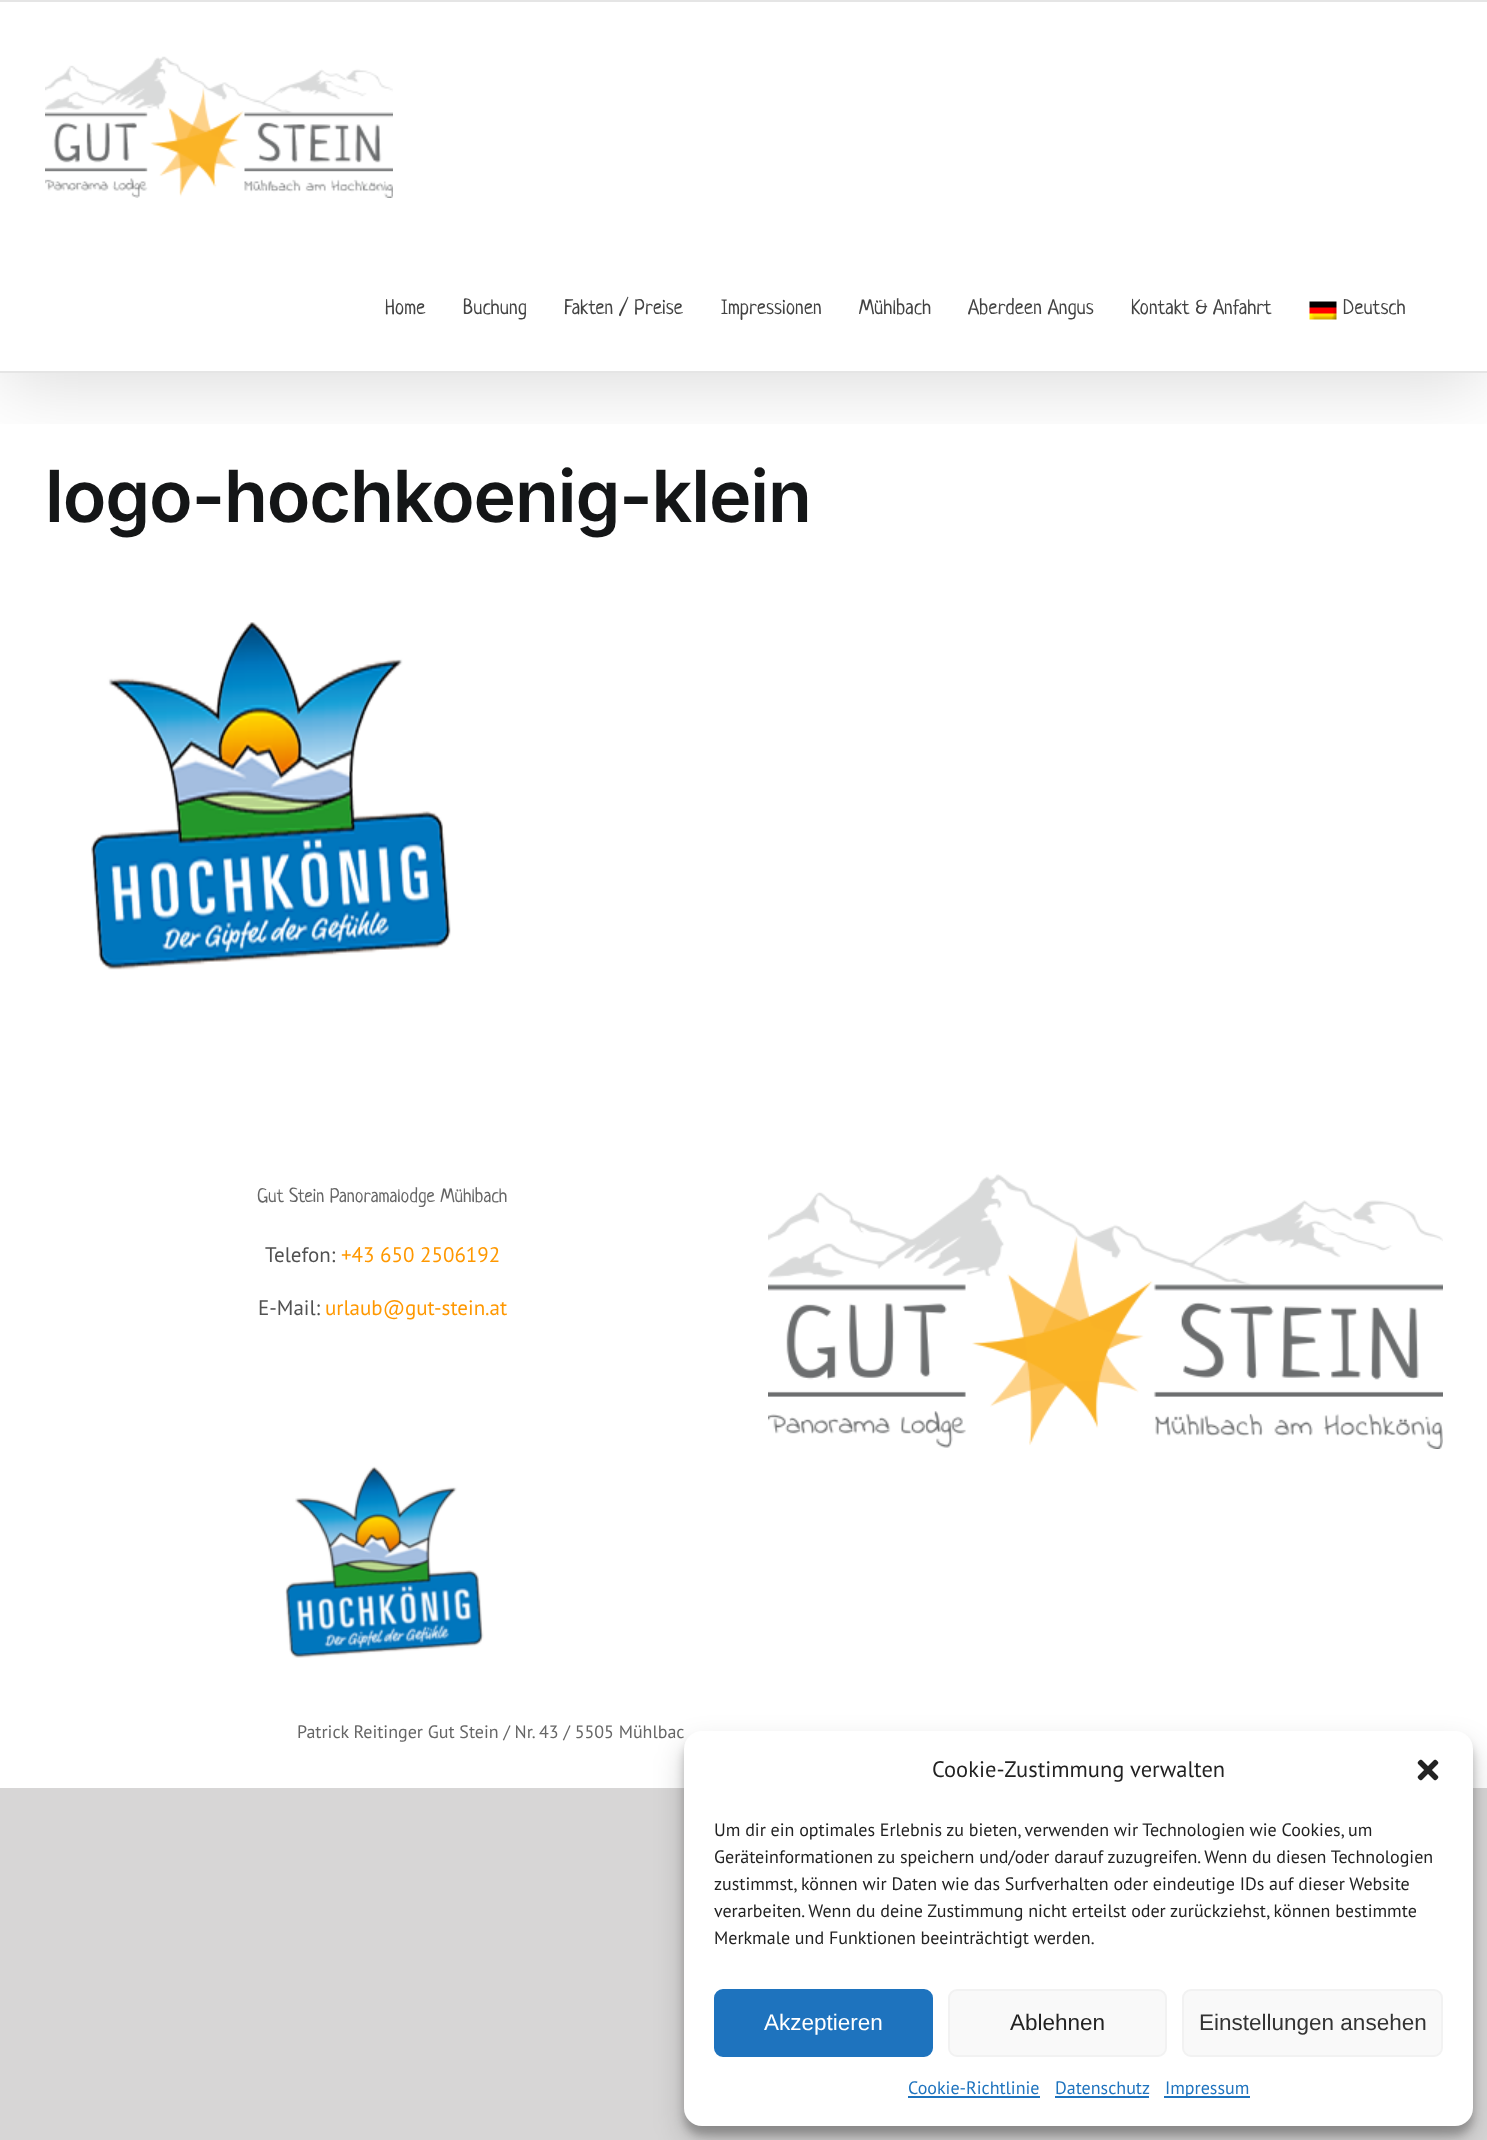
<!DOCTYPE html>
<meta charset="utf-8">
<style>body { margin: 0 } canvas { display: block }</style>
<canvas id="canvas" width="1487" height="2140"></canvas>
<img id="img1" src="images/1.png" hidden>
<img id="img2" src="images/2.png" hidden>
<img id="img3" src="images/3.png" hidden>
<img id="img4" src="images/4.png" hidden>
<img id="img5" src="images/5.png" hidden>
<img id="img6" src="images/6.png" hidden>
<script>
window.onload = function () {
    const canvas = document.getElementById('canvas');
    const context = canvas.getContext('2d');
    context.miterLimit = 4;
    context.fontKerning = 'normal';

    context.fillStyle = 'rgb(215, 214, 214)';
    context.fillRect(0, 0, 1487, 2140);
    context.fillStyle = 'rgb(255, 255, 255)';
    context.fillRect(0, 2, 1487, 1786);
    context.save();
    context.beginPath();
    context.rect(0, 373, 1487, 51);
    context.clip();
    context.fillStyle = 'rgba(0, 0, 0, 0.14)';
    context.filter = 'blur(37.5px)';
    context.beginPath();
    context.rect(3, 18, 1482, 366);
    context.fill();
    context.filter = 'none';
    context.restore();
    context.fillStyle = 'rgb(229, 229, 229)';
    context.fillRect(0, 0, 1487, 2);
    context.fillRect(0, 371, 1487, 2);
    context.drawImage(document.getElementById('img1'), 45, 56, 348, 142);
    context.drawImage(document.getElementById('img2'), 1309, 301, 28, 19);
    context.drawImage(document.getElementById('img3'), 91, 622, 360, 348);
    context.drawImage(document.getElementById('img4'), 768, 1174, 675, 275);
    context.drawImage(document.getElementById('img5'), 285, 1466, 199, 192);
    context.fillStyle = 'rgba(0, 0, 0, 0.23)';
    context.filter = 'blur(4.5px)';
    context.beginPath();
    context.roundRect(684, 1740, 789, 395, 18);
    context.fill();
    context.filter = 'none';
    context.fillStyle = 'rgba(0, 0, 0, 0.19)';
    context.filter = 'blur(15px)';
    context.beginPath();
    context.roundRect(684, 1746, 789, 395, 18);
    context.fill();
    context.filter = 'none';
    context.font = '21px Neucha';
    context.fillStyle = 'rgb(66, 66, 66)';
    context.fillText('Home', 385, 314);
    context.fillText('Buchung', 463, 314);
    context.fillText('Fakten / Preise', 564, 314);
    context.fillText('Impressionen', 721, 314);
    context.fillText('Mühlbach', 859, 314);
    context.fillText('Aberdeen Angus', 968, 314);
    context.fillText('Kontakt & Anfahrt', 1131, 314);
    context.fillText('Deutsch', 1343, 314);
    context.letterSpacing = '-1.1px';
    context.font = '600 71.75px Inter';
    context.fillStyle = 'rgb(20, 22, 23)';
    context.fillText('logo-hochkoenig-klein', 45, 522);
    context.letterSpacing = '0px';
    context.font = '19.5px Neucha';
    context.fillStyle = 'rgb(102, 102, 102)';
    context.fillText('Gut Stein Panoramalodge Mühlbach', 257, 1202);
    context.font = '21px PT Sans';
    context.fillStyle = 'rgb(81, 81, 81)';
    context.fillText('Telefon:', 265, 1262);
    context.fillStyle = 'rgb(255, 152, 0)';
    context.fillText('+43 650 2506192', 341, 1262);
    context.fillStyle = 'rgb(81, 81, 81)';
    context.fillText('E-Mail:', 258, 1315);
    context.fillStyle = 'rgb(255, 152, 0)';
    context.fillText('urlaub@gut-stein.at', 325, 1315);
    context.font = '18px PT Sans';
    context.fillStyle = 'rgb(102, 102, 102)';
    context.fillText('Patrick Reitinger Gut Stein / Nr. 43 / 5505 Mühlbac', 297, 1738);
    context.fillStyle = 'rgb(255, 255, 255)';
    context.beginPath();
    context.roundRect(684, 1731, 789, 395, 18);
    context.fill();
    context.font = '22.5px PT Sans';
    context.fillStyle = 'rgb(34, 34, 34)';
    context.fillText('Cookie-Zustimmung verwalten', 932, 1777);
    context.drawImage(document.getElementById('img6'), 1417, 1759, 22, 22);
    context.font = '18px PT Sans';
    context.fillText('Um dir ein optimales Erlebnis zu bieten, verwenden wir Technologien wie Cookies, um', 714, 1836);
    context.fillText('Geräteinformationen zu speichern und/oder darauf zuzugreifen. Wenn du diesen Technologien', 714, 1863);
    context.fillText('zustimmst, können wir Daten wie das Surfverhalten oder eindeutige IDs auf dieser Website', 714, 1890);
    context.fillText('verarbeiten. Wenn du deine Zustimmung nicht erteilst oder zurückziehst, können bestimmte', 714, 1917);
    context.fillText('Merkmale und Funktionen beeinträchtigt werden.', 714, 1944);
    context.fillStyle = 'rgb(30, 115, 190)';
    context.beginPath();
    context.roundRect(715, 1990, 217, 66, 8);
    context.fill();
    context.strokeStyle = 'rgb(30, 115, 190)';
    context.lineWidth = 2;
    context.stroke();
    context.font = '22.5px Liberation Sans';
    context.fillStyle = 'rgb(255, 255, 255)';
    context.fillText('Akzeptieren', 764, 2030);
    context.fillStyle = 'rgb(249, 249, 249)';
    context.beginPath();
    context.roundRect(949, 1990, 217, 66, 8);
    context.fill();
    context.strokeStyle = 'rgb(242, 242, 242)';
    context.stroke();
    context.fillStyle = 'rgb(34, 34, 34)';
    context.fillText('Ablehnen', 1010, 2030);
    context.fillStyle = 'rgb(249, 249, 249)';
    context.beginPath();
    context.roundRect(1183, 1990, 259, 66, 8);
    context.fill();
    context.stroke();
    context.fillStyle = 'rgb(51, 51, 51)';
    context.fillText('Einstellungen ansehen', 1199, 2030);
    context.font = '18px PT Sans';
    context.fillStyle = 'rgb(30, 115, 190)';
    context.fillText('Cookie-Richtlinie', 908, 2094);
    context.fillRect(908, 2096, 132, 2);
    context.fillText('Datenschutz', 1055, 2094);
    context.fillRect(1055, 2096, 94, 2);
    context.fillRect(1164, 2096, 86, 2);
    context.fillText('Impressum', 1165, 2094);
};
</script>
